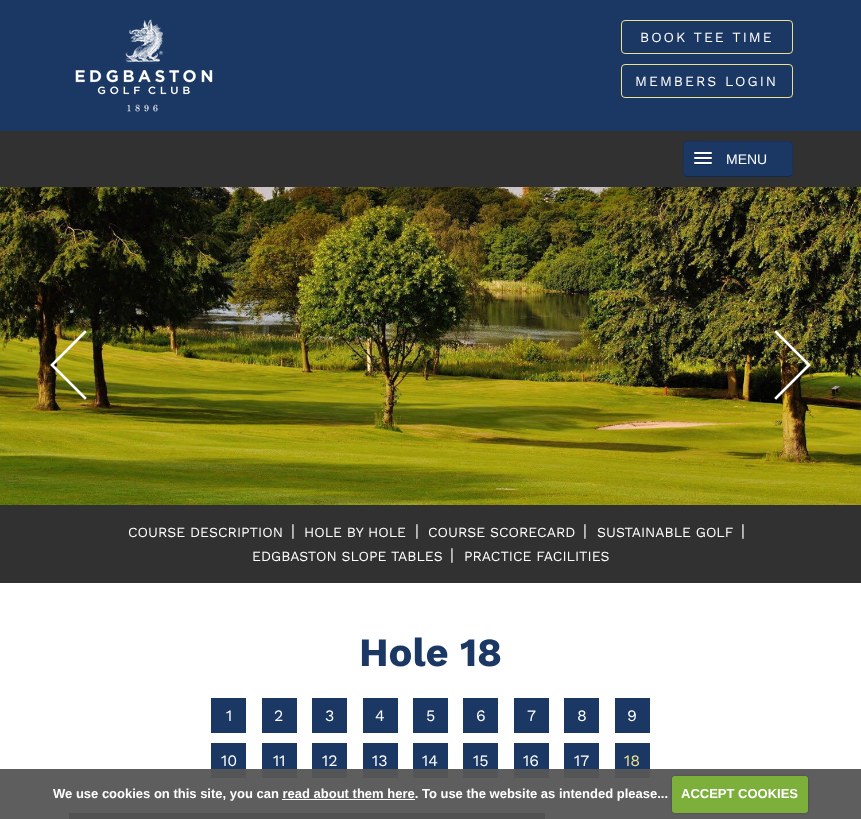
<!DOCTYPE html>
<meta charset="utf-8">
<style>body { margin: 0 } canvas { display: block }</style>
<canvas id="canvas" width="861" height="819"></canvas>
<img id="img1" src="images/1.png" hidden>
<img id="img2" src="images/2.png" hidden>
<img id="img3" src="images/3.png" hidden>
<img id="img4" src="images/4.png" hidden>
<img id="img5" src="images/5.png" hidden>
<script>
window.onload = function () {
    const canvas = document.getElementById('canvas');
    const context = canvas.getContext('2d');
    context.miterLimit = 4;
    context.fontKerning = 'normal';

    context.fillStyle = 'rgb(255, 255, 255)';
    context.fillRect(0, 0, 861, 819);
    context.fillStyle = 'rgb(94, 94, 94)';
    context.fillRect(0, 769, 861, 50);
    context.fillStyle = 'rgb(27, 56, 100)';
    context.fillRect(0, 0, 861, 131);
    context.drawImage(document.getElementById('img1'), 75, 19, 138, 93);
    context.beginPath();
    context.roundRect(621.5, 20.5, 171, 33, 3.5);
    context.strokeStyle = 'rgb(237, 225, 143)';
    context.stroke();
    context.beginPath();
    context.roundRect(621.5, 64.5, 171, 33, 3.5);
    context.stroke();
    context.fillStyle = 'rgb(49, 49, 49)';
    context.fillRect(0, 131, 861, 56);
    context.fillStyle = 'rgb(27, 56, 100)';
    context.beginPath();
    context.roundRect(683, 141, 110, 36, 4);
    context.fill();
    context.beginPath();
    context.moveTo(791.5, 175.5);
    context.lineTo(789, 176.5);
    context.lineTo(686.5, 176.5);
    context.lineTo(684.5, 175.5);
    context.strokeStyle = 'rgba(0, 0, 0, 0.25)';
    context.stroke();
    context.beginPath();
    context.moveTo(684.5, 175.5);
    context.bezierCurveTo(682, 173, 683.5, 162, 683.5, 159);
    context.bezierCurveTo(683.5, 137.5, 680.5, 141.5, 704, 141.5);
    context.lineTo(789, 141.5);
    context.bezierCurveTo(793.5, 141.5, 792.5, 147, 792.5, 149.5);
    context.lineTo(792.5, 163.5);
    context.bezierCurveTo(792.5, 166, 794, 173, 791.5, 175.5);
    context.strokeStyle = 'rgba(0, 0, 0, 0.1)';
    context.stroke();
    context.fillStyle = 'rgb(20, 42, 75)';
    context.beginPath();
    context.moveTo(694, 153.5);
    context.bezierCurveTo(693, 155.5, 697.5, 155, 697.5, 155);
    context.lineTo(708.5, 155);
    context.bezierCurveTo(708.5, 155, 713, 155.5, 712, 153.5);
    context.bezierCurveTo(711, 154.5, 704.5, 154, 703, 154);
    context.bezierCurveTo(701.5, 154, 695, 154.5, 694, 153.5);
    context.closePath();
    context.fill();
    context.fillStyle = 'rgb(255, 255, 255)';
    context.beginPath();
    context.roundRect(694, 152, 18, 2, 1);
    context.fill();
    context.fillStyle = 'rgb(20, 42, 75)';
    context.beginPath();
    context.moveTo(694, 158.5);
    context.bezierCurveTo(693, 160.5, 697.5, 160, 697.5, 160);
    context.lineTo(708.5, 160);
    context.bezierCurveTo(708.5, 160, 713, 160.5, 712, 158.5);
    context.bezierCurveTo(711, 159.5, 704.5, 159, 703, 159);
    context.bezierCurveTo(701.5, 159, 695, 159.5, 694, 158.5);
    context.closePath();
    context.fill();
    context.fillStyle = 'rgb(255, 255, 255)';
    context.beginPath();
    context.roundRect(694, 157, 18, 2, 1);
    context.fill();
    context.fillStyle = 'rgb(20, 42, 75)';
    context.beginPath();
    context.moveTo(694, 163.5);
    context.bezierCurveTo(693, 165.5, 697.5, 165, 697.5, 165);
    context.lineTo(708.5, 165);
    context.bezierCurveTo(708.5, 165, 713, 165.5, 712, 163.5);
    context.bezierCurveTo(711, 164.5, 704.5, 164, 703, 164);
    context.bezierCurveTo(701.5, 164, 695, 164.5, 694, 163.5);
    context.closePath();
    context.fill();
    context.fillStyle = 'rgb(255, 255, 255)';
    context.beginPath();
    context.roundRect(694, 162, 18, 2, 1);
    context.fill();
    context.drawImage(document.getElementById('img2'), 0, 187, 861, 318);
    context.drawImage(document.getElementById('img3'), 50, 330, 37, 70);
    context.drawImage(document.getElementById('img4'), 774, 330, 37, 70);
    context.fillStyle = 'rgb(49, 49, 49)';
    context.fillRect(0, 505, 861, 78);
    context.fillStyle = 'rgb(27, 56, 100)';
    context.fillRect(211, 698, 35, 35);
    context.fillRect(262, 698, 35, 35);
    context.fillRect(312, 698, 35, 35);
    context.fillRect(363, 698, 35, 35);
    context.fillRect(413, 698, 35, 35);
    context.fillRect(463, 698, 35, 35);
    context.fillRect(514, 698, 35, 35);
    context.fillRect(564, 698, 35, 35);
    context.fillRect(615, 698, 35, 35);
    context.fillRect(211, 743, 35, 26);
    context.fillStyle = 'rgb(83, 85, 87)';
    context.fillRect(211, 769, 35, 9);
    context.fillStyle = 'rgb(27, 56, 100)';
    context.fillRect(262, 743, 35, 26);
    context.fillStyle = 'rgb(83, 85, 87)';
    context.fillRect(262, 769, 35, 9);
    context.fillStyle = 'rgb(27, 56, 100)';
    context.fillRect(312, 743, 35, 26);
    context.fillStyle = 'rgb(83, 85, 87)';
    context.fillRect(312, 769, 35, 9);
    context.fillStyle = 'rgb(27, 56, 100)';
    context.fillRect(363, 743, 35, 26);
    context.fillStyle = 'rgb(83, 85, 87)';
    context.fillRect(363, 769, 35, 9);
    context.fillStyle = 'rgb(27, 56, 100)';
    context.fillRect(413, 743, 35, 26);
    context.fillStyle = 'rgb(83, 85, 87)';
    context.fillRect(413, 769, 35, 9);
    context.fillStyle = 'rgb(27, 56, 100)';
    context.fillRect(463, 743, 35, 26);
    context.fillStyle = 'rgb(83, 85, 87)';
    context.fillRect(463, 769, 35, 9);
    context.fillStyle = 'rgb(27, 56, 100)';
    context.fillRect(514, 743, 35, 26);
    context.fillStyle = 'rgb(83, 85, 87)';
    context.fillRect(514, 769, 35, 9);
    context.fillStyle = 'rgb(27, 56, 100)';
    context.fillRect(564, 743, 35, 26);
    context.fillStyle = 'rgb(83, 85, 87)';
    context.fillRect(564, 769, 35, 9);
    context.fillStyle = 'rgb(27, 56, 100)';
    context.fillRect(615, 743, 35, 26);
    context.fillStyle = 'rgb(83, 85, 87)';
    context.fillRect(615, 769, 35, 9);
    context.fillStyle = 'rgb(82, 82, 82)';
    context.fillRect(69, 813, 476, 6);
    context.drawImage(document.getElementById('img5'), 643, 815, 42, 4);
    context.fillStyle = 'rgba(0, 0, 0, 0.25)';
    context.filter = 'blur(1px)';
    context.beginPath();
    context.roundRect(672, 776, 136, 37, 3);
    context.fill();
    context.filter = 'none';
    context.fillStyle = 'rgb(125, 175, 59)';
    context.beginPath();
    context.roundRect(672, 776, 136, 37, 3);
    context.fill();
    context.fillStyle = 'rgb(255, 255, 255)';
    context.fillRect(282, 799, 133, 1);
    context.letterSpacing = '2px';
    context.font = '14px Work Sans';
    context.fillText('BOOK TEE TIME', 640, 42);
    context.fillText('MEMBERS LOGIN', 635, 86);
    context.letterSpacing = '0px';
    context.font = '14px Liberation Sans';
    context.fillText('MENU', 726, 164);
    context.font = '14px Work Sans';
    context.fillText('COURSE DESCRIPTION', 128, 537);
    context.font = '16px Work Sans';
    context.fillText('|', 291, 536);
    context.font = '14px Work Sans';
    context.fillText('HOLE BY HOLE', 304, 537);
    context.font = '16px Work Sans';
    context.fillText('|', 415, 536);
    context.font = '14px Work Sans';
    context.fillText('COURSE SCORECARD', 428, 537);
    context.font = '16px Work Sans';
    context.fillText('|', 583, 536);
    context.font = '14px Work Sans';
    context.fillText('SUSTAINABLE GOLF', 597, 537);
    context.font = '16px Work Sans';
    context.fillText('|', 741, 536);
    context.font = '14px Work Sans';
    context.fillText('EDGBASTON SLOPE TABLES', 252, 561);
    context.font = '16px Work Sans';
    context.fillText('|', 450, 560);
    context.font = '14px Work Sans';
    context.fillText('PRACTICE FACILITIES', 464, 561);
    context.font = 'bold 40px Work Sans';
    context.fillStyle = 'rgb(27, 56, 100)';
    context.fillText('Hole 18', 359, 666);
    context.font = '16px Work Sans';
    context.fillStyle = 'rgb(255, 255, 255)';
    context.fillText('1', 226, 721);
    context.fillText('2', 274, 721);
    context.fillText('3', 325, 721);
    context.fillText('4', 375, 721);
    context.fillText('5', 426, 721);
    context.fillText('6', 476, 721);
    context.fillText('7', 527, 721);
    context.fillText('8', 577, 721);
    context.fillText('9', 627, 721);
    context.fillText('10', 221, 766);
    context.fillText('11', 273, 766);
    context.fillText('12', 322, 766);
    context.fillText('13', 372, 766);
    context.fillText('14', 422, 766);
    context.fillText('15', 473, 766);
    context.fillText('16', 523, 766);
    context.fillText('17', 574, 766);
    context.fillStyle = 'rgb(237, 225, 143)';
    context.fillText('18', 624, 766);
    context.font = 'bold 13px Liberation Sans';
    context.fillStyle = 'rgb(255, 255, 255)';
    context.fillText('We use cookies on this site, you can read about them here. To use the website as intended please...', 53, 798);
    context.fillText('ACCEPT COOKIES', 681, 798);
};
</script>
